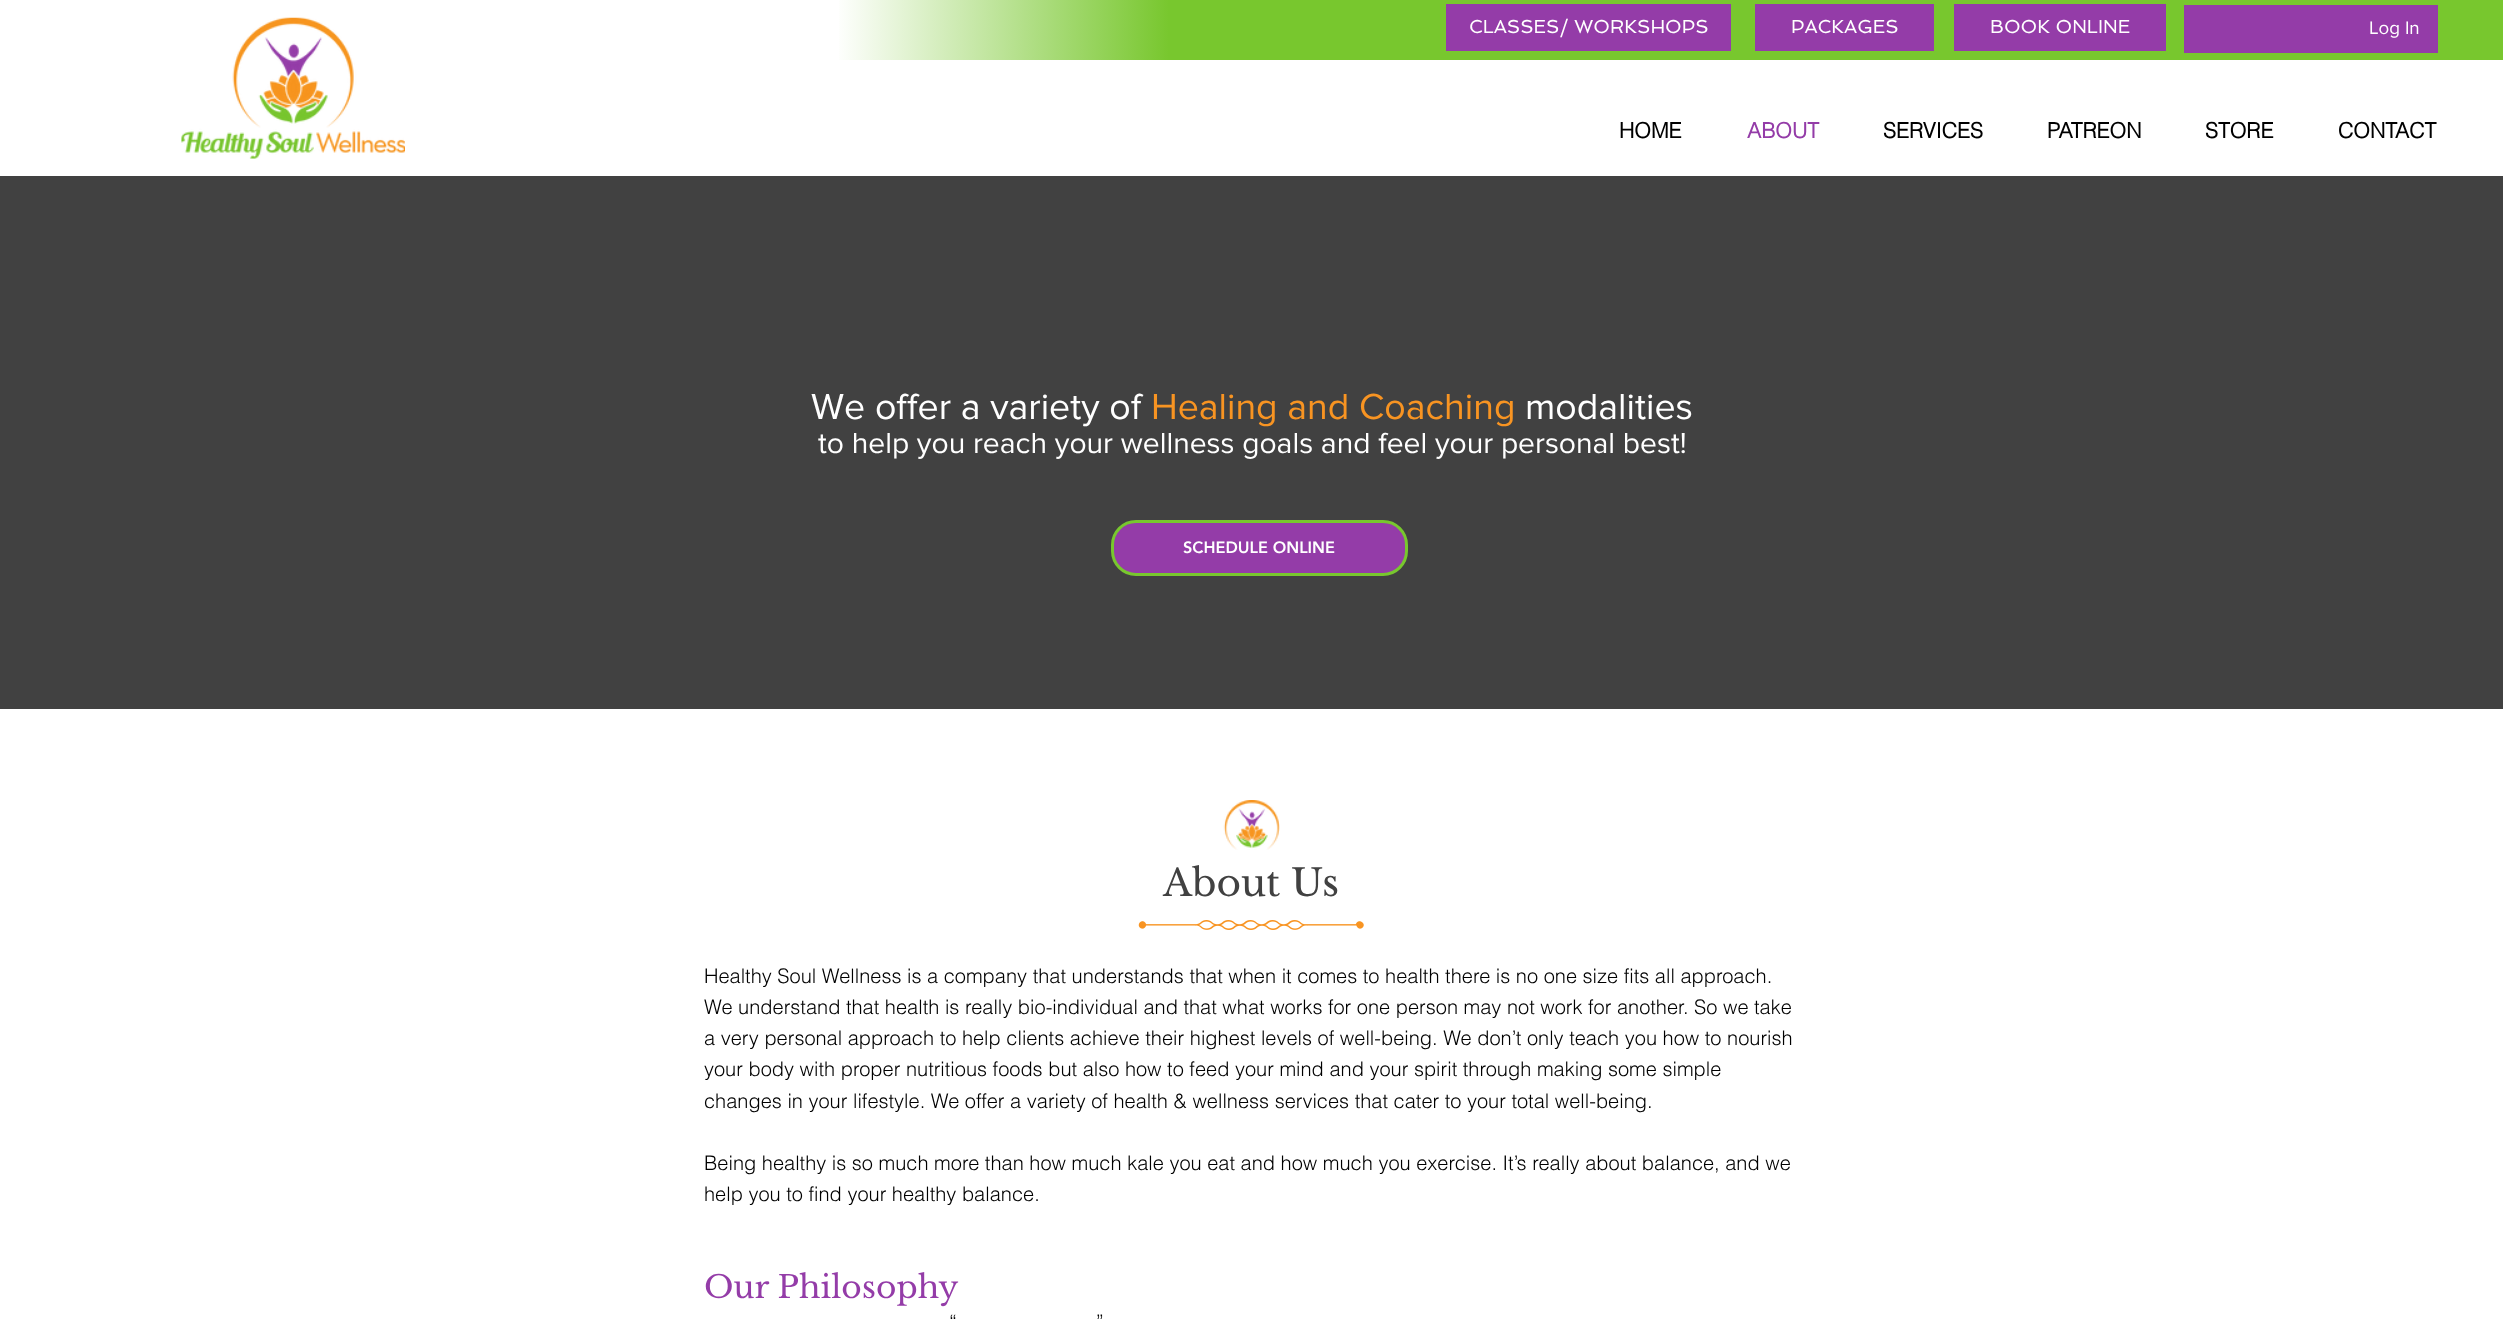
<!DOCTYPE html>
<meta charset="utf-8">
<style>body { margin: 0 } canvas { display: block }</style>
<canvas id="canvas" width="2503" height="1324"></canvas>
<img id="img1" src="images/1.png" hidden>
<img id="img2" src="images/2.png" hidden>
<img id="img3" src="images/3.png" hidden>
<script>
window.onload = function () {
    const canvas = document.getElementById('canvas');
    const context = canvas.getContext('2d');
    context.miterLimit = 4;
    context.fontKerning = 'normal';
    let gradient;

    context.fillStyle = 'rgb(255, 255, 255)';
    context.fillRect(0, 0, 2503, 1324);
    gradient = context.createLinearGradient(835, 30, 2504, 30);
    gradient.addColorStop(0, 'rgb(255, 255, 255)');
    gradient.addColorStop(0.2, 'rgb(120, 199, 46)');
    context.fillStyle = gradient;
    context.fillRect(839, 0, 1664, 60);
    context.fillStyle = 'rgb(148, 60, 168)';
    context.fillRect(1446, 4, 285, 47);
    context.fillRect(1755, 4, 179, 47);
    context.fillRect(1954, 4, 212, 47);
    context.fillRect(2184, 5, 254, 48);
    context.drawImage(document.getElementById('img1'), 181, 17, 224, 142);
    context.fillStyle = 'rgb(65, 65, 65)';
    context.fillRect(0, 176, 2503, 533);
    context.fillStyle = 'rgb(148, 60, 168)';
    context.beginPath();
    context.roundRect(1112.5, 521.5, 294, 53, 23.5);
    context.fill();
    context.strokeStyle = 'rgb(120, 199, 46)';
    context.lineWidth = 3;
    context.stroke();
    context.drawImage(document.getElementById('img2'), 1223, 800, 57, 50);
    context.drawImage(document.getElementById('img3'), 1138, 920, 226, 10);
    context.font = '18.75px Spinnaker';
    context.fillStyle = 'rgb(255, 255, 255)';
    context.fillText('CLASSES/ WORKSHOPS', 1469, 33);
    context.fillText('PACKAGES', 1791, 33);
    context.fillText('BOOK ONLINE', 1990, 33);
    context.font = '18.75px "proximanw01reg"';
    context.fillText('Log In', 2369, 34);
    context.font = 'bold 21.25px helvetica';
    context.fillStyle = 'rgb(0, 0, 0)';
    context.fillText('HOME', 1619, 138);
    context.fillStyle = 'rgb(148, 60, 168)';
    context.fillText('ABOUT', 1747, 138);
    context.fillStyle = 'rgb(0, 0, 0)';
    context.fillText('SERVICES', 1883, 138);
    context.fillText('PATREON', 2047, 138);
    context.fillText('STORE', 2205, 138);
    context.fillText('CONTACT', 2338, 138);
    context.font = '37.5px "proximanw01reg"';
    context.fillStyle = 'rgb(255, 255, 255)';
    context.fillText('We offer a variety of', 811, 419);
    context.fillStyle = 'rgb(248, 148, 34)';
    context.fillText('Healing and Coaching', 1151, 419);
    context.fillStyle = 'rgb(255, 255, 255)';
    context.fillText('modalities', 1525, 419);
    context.font = '30px "proximanw01reg"';
    context.fillText('to help you reach your wellness goals and feel your personal best!', 818, 453);
    context.font = '900 16.25px "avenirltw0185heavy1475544"';
    context.fillText('SCHEDULE ONLINE', 1183, 553);
    context.font = '37.5px Libre Baskerville';
    context.fillStyle = 'rgb(65, 65, 65)';
    context.fillText('About Us', 1163, 896);
    context.font = '300 20px helvetica';
    context.fillStyle = 'rgb(0, 0, 0)';
    context.fillText('Healthy Soul Wellness is a company that understands that when it comes to health there is no one size fits all approach.', 704, 983);
    context.fillText('We understand that health is really bio-individual and that what works for one person may not work for another. So we take', 704, 1014);
    context.fillText('a very personal approach to help clients achieve their highest levels of well-being. We don’t only teach you how to nourish', 704, 1045);
    context.fillText('your body with proper nutritious foods but also how to feed your mind and your spirit through making some simple', 704, 1076);
    context.fillText('changes in your lifestyle. We offer a variety of health & wellness services that cater to your total well-being.', 704, 1108);
    context.fillText('Being healthy is so much more than how much kale you eat and how much you exercise. It’s really about balance, and we', 704, 1170);
    context.fillText('help you to find your healthy balance.', 704, 1201);
    context.font = '31.25px Libre Baskerville';
    context.fillStyle = 'rgb(148, 60, 168)';
    context.fillText('Our Philosophy', 704, 1298);
    context.font = '300 20px helvetica';
    context.fillStyle = 'rgb(0, 0, 0)';
    context.fillText('“', 949, 1329);
    context.fillText('”', 1096, 1329);
};
</script>
